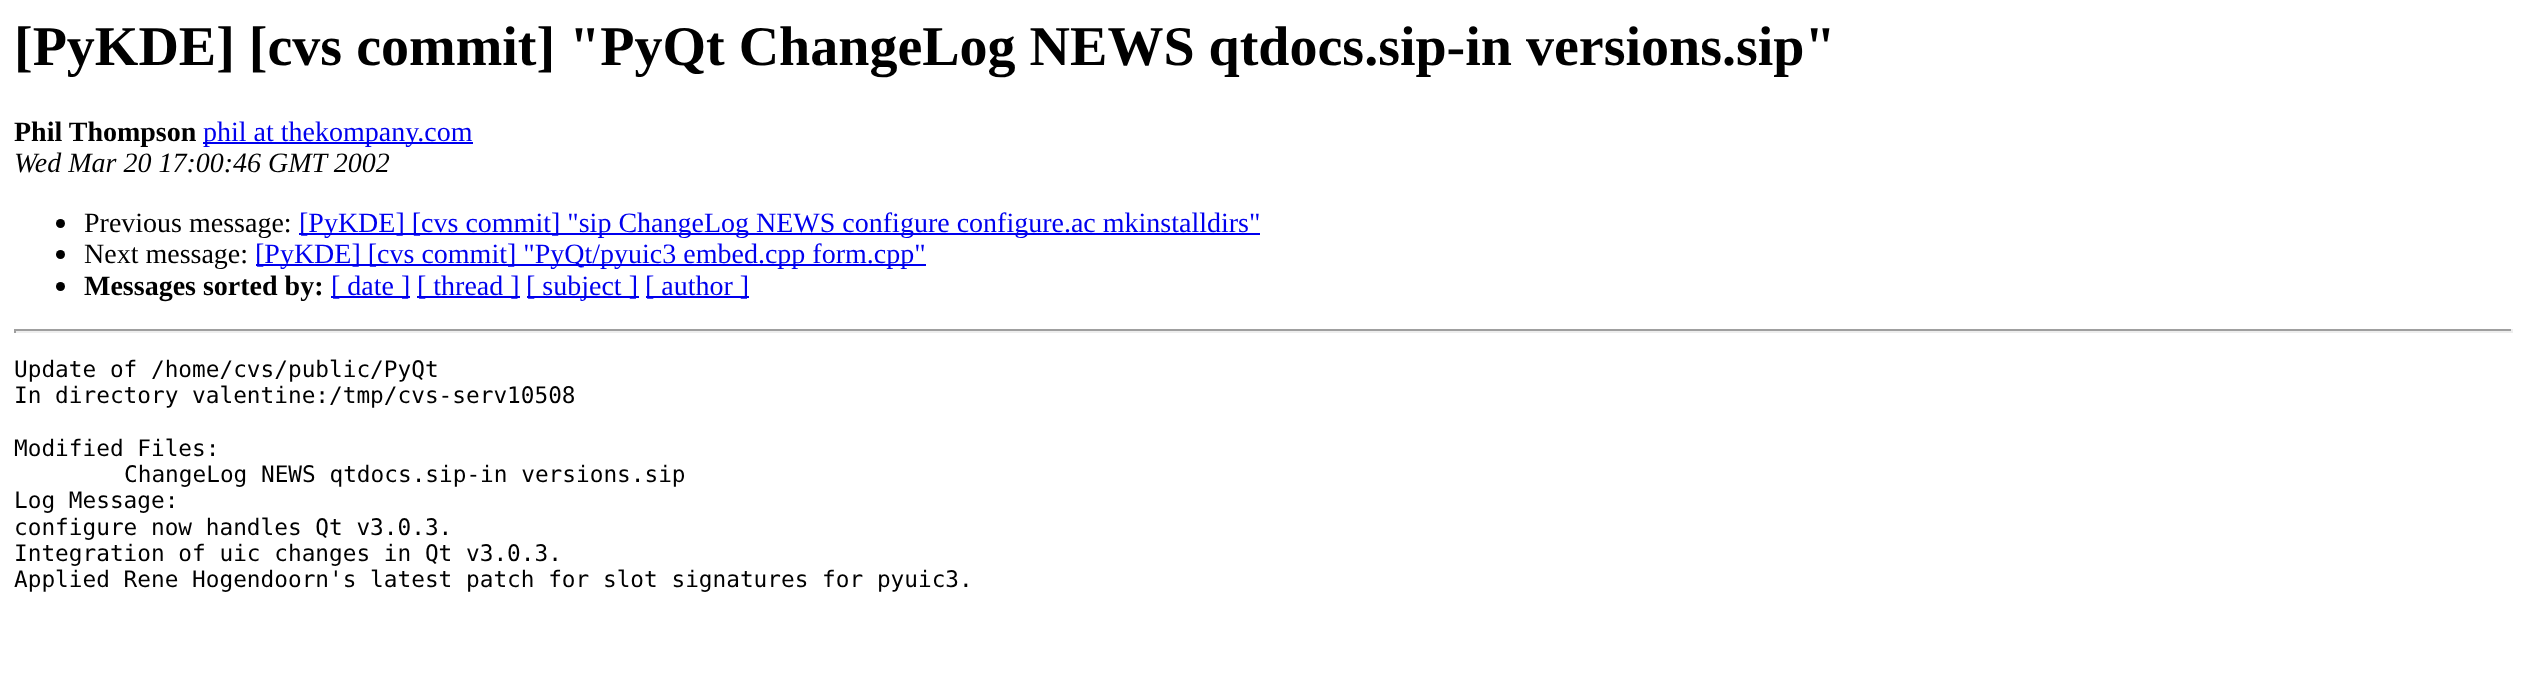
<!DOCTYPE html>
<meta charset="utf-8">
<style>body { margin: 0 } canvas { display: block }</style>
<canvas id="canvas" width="2527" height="682"></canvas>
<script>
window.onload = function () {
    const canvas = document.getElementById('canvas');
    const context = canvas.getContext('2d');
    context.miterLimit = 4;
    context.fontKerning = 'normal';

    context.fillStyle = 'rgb(255, 255, 255)';
    context.fillRect(0, 0, 2527, 682);
    context.fillStyle = 'rgb(0, 0, 238)';
    context.fillRect(203, 142, 270, 2);
    context.fillStyle = 'rgb(0, 0, 0)';
    context.beginPath();
    context.arc(60.5, 223.5, 4.5, 0, 2 * Math.PI);
    context.fill();
    context.fillStyle = 'rgb(0, 0, 238)';
    context.fillRect(299, 233, 961, 2);
    context.fillStyle = 'rgb(0, 0, 0)';
    context.beginPath();
    context.arc(60.5, 254.5, 4.5, 0, 2 * Math.PI);
    context.fill();
    context.fillStyle = 'rgb(0, 0, 238)';
    context.fillRect(256, 264, 670, 2);
    context.fillStyle = 'rgb(0, 0, 0)';
    context.beginPath();
    context.arc(60.5, 286.5, 4.5, 0, 2 * Math.PI);
    context.fill();
    context.fillStyle = 'rgb(0, 0, 238)';
    context.fillRect(331, 296, 79, 2);
    context.fillRect(417, 296, 103, 2);
    context.fillRect(527, 296, 112, 2);
    context.fillRect(646, 296, 103, 2);
    context.fillStyle = 'rgb(159, 159, 159)';
    context.fillRect(14, 329, 2499, 2);
    context.fillStyle = 'rgb(238, 238, 238)';
    context.fillRect(2511, 329, 2, 4);
    context.fillRect(14, 331, 2499, 2);
    context.fillStyle = 'rgb(159, 159, 159)';
    context.fillRect(14, 329, 2, 4);
    context.font = 'bold 56px Liberation Serif';
    context.fillStyle = 'rgb(0, 0, 0)';
    context.fillText('[PyKDE] [cvs commit] "PyQt ChangeLog NEWS qtdocs.sip-in versions.sip"', 14, 65);
    context.font = 'bold 28px Liberation Serif';
    context.fillText('Phil Thompson', 14, 141);
    context.font = '28px Liberation Serif';
    context.fillStyle = 'rgb(0, 0, 238)';
    context.fillText('phil at thekompany.com', 203, 141);
    context.font = 'italic 28px Liberation Serif';
    context.fillStyle = 'rgb(0, 0, 0)';
    context.fillText('Wed Mar 20 17:00:46 GMT 2002', 14, 172);
    context.font = '28px Liberation Serif';
    context.fillText('Previous message:', 84, 232);
    context.fillStyle = 'rgb(0, 0, 238)';
    context.fillText('[PyKDE] [cvs commit] "sip ChangeLog NEWS configure configure.ac mkinstalldirs"', 299, 232);
    context.fillStyle = 'rgb(0, 0, 0)';
    context.fillText('Next message:', 84, 263);
    context.fillStyle = 'rgb(0, 0, 238)';
    context.fillText('[PyKDE] [cvs commit] "PyQt/pyuic3 embed.cpp form.cpp"', 255, 263);
    context.font = 'bold 28px Liberation Serif';
    context.fillStyle = 'rgb(0, 0, 0)';
    context.fillText('Messages sorted by:', 84, 295);
    context.font = '28px Liberation Serif';
    context.fillStyle = 'rgb(0, 0, 238)';
    context.fillText('[ date ]', 331, 295);
    context.fillText('[ thread ]', 417, 295);
    context.fillText('[ subject ]', 526, 295);
    context.fillText('[ author ]', 645, 295);
    context.font = '22.75px DejaVu Sans Mono';
    context.fillStyle = 'rgb(0, 0, 0)';
    context.fillText('Update of /home/cvs/public/PyQt', 14, 377);
    context.fillText('In directory valentine:/tmp/cvs-serv10508', 14, 403);
    context.fillText('Modified Files:', 14, 456);
    context.fillText('ChangeLog NEWS qtdocs.sip-in versions.sip', 124, 482);
    context.fillText('Log Message:', 14, 508);
    context.fillText('configure now handles Qt v3.0.3.', 14, 535);
    context.fillText('Integration of uic changes in Qt v3.0.3.', 14, 561);
    context.fillText('Applied Rene Hogendoorn\'s latest patch for slot signatures for pyuic3.', 14, 587);
};
</script>
